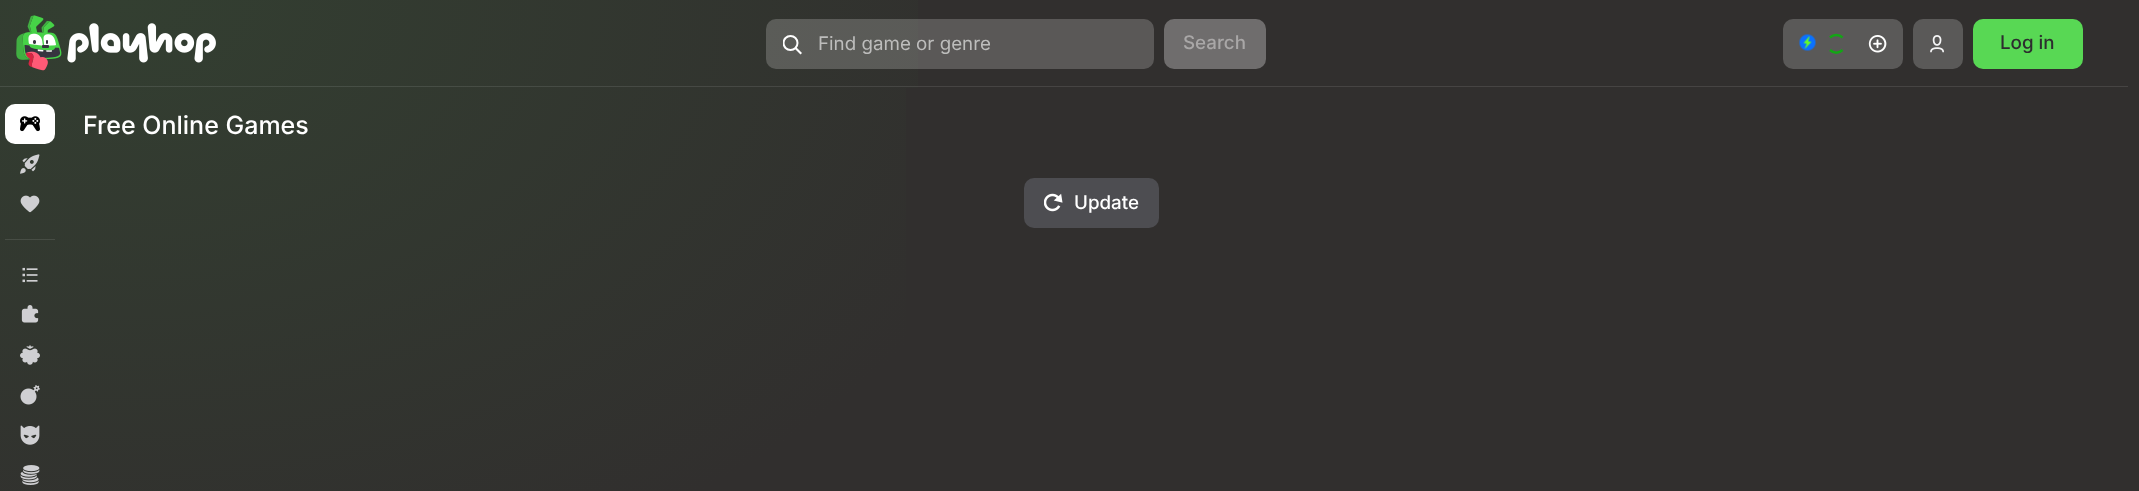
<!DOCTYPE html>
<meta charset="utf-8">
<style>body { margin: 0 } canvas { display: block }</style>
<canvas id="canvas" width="2139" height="491"></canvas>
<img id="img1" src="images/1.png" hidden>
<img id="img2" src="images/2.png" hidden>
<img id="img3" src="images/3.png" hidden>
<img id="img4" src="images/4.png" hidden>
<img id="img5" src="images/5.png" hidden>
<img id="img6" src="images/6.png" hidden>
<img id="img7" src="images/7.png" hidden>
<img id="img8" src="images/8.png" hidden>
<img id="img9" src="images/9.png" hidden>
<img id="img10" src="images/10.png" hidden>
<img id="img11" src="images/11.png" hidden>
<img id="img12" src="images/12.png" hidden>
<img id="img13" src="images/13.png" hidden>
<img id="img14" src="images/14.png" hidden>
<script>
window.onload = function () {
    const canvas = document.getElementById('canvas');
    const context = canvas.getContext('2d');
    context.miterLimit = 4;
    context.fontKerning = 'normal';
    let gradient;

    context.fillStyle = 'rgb(49, 47, 46)';
    context.fillRect(0, 0, 2139, 491);
    gradient = context.createRadialGradient(118, 0, 0, 118, 0, 946);
    gradient.addColorStop(0, 'rgb(51, 63, 49)');
    gradient.addColorStop(1, 'rgb(49, 47, 46)');
    context.fillStyle = gradient;
    context.beginPath();
    context.rect(0, 0, 918, 88);
    context.save();
    context.clip();
    context.scale(1, 625 / 946);
    context.fillRect(0, 0, 2139, 744);
    context.restore();
    context.fillStyle = 'rgba(255, 255, 255, 0.1)';
    context.fillRect(0, 86, 2128, 1);
    context.drawImage(document.getElementById('img1'), 16, 15, 200, 56);
    context.fillStyle = 'rgba(255, 255, 255, 0.2)';
    context.beginPath();
    context.roundRect(766, 19, 388, 50, 10);
    context.fill();
    context.save();
    context.beginPath();
    context.rect(783, 35, 20, 20);
    context.clip();
    context.beginPath();
    context.arc(790.5, 43, 7, 0, 2 * Math.PI);
    context.strokeStyle = 'rgb(255, 255, 255)';
    context.lineWidth = 2;
    context.stroke();
    context.restore();
    context.fillStyle = 'rgb(255, 255, 255)';
    context.beginPath();
    context.moveTo(794.5, 48.5);
    context.lineTo(800.5, 54.5);
    context.lineTo(802, 53);
    context.lineTo(796, 47);
    context.closePath();
    context.fill();
    context.fillStyle = 'rgb(111, 109, 109)';
    context.beginPath();
    context.roundRect(1164, 19, 102, 50, 10);
    context.fill();
    context.fillStyle = 'rgb(90, 89, 88)';
    context.beginPath();
    context.roundRect(1783, 19, 120, 50, 10);
    context.fill();
    context.drawImage(document.getElementById('img2'), 1799, 34, 17, 17);
    context.beginPath();
    context.moveTo(1830, 37.5);
    context.bezierCurveTo(1833.5, 34, 1839, 34, 1842.5, 37.5);
    context.moveTo(1842.5, 50);
    context.bezierCurveTo(1839, 53.5, 1833.5, 53.5, 1830, 50);
    context.strokeStyle = 'rgb(19, 166, 21)';
    context.lineWidth = 2.5;
    context.stroke();
    context.drawImage(document.getElementById('img3'), 1868, 35, 19, 18);
    context.beginPath();
    context.roundRect(1913, 19, 50, 50, 10);
    context.fill();
    context.drawImage(document.getElementById('img4'), 1930, 35, 14, 18);
    context.fillStyle = 'rgb(88, 216, 84)';
    context.beginPath();
    context.roundRect(1973, 19, 110, 50, 10);
    context.fill();
    gradient = context.createRadialGradient(118, 0, 0, 118, 0, 946);
    gradient.addColorStop(0, 'rgb(51, 63, 49)');
    gradient.addColorStop(1, 'rgb(49, 47, 46)');
    context.fillStyle = gradient;
    context.beginPath();
    context.rect(0, 88, 906, 403);
    context.save();
    context.clip();
    context.scale(1, 625 / 946);
    context.fillRect(0, 0, 2139, 744);
    context.restore();
    context.fillStyle = 'rgb(255, 255, 255)';
    context.beginPath();
    context.roundRect(5, 104, 50, 40, 10);
    context.fill();
    context.drawImage(document.getElementById('img5'), 20, 116, 20, 16);
    context.drawImage(document.getElementById('img6'), 20, 154, 20, 20);
    context.drawImage(document.getElementById('img7'), 20, 195, 20, 18);
    context.fillStyle = 'rgb(71, 77, 69)';
    context.fillRect(5, 239, 50, 1);
    context.drawImage(document.getElementById('img8'), 22, 267, 16, 16);
    context.drawImage(document.getElementById('img9'), 21, 305, 18, 18);
    context.drawImage(document.getElementById('img10'), 20, 345, 20, 20);
    context.drawImage(document.getElementById('img11'), 20, 385, 20, 20);
    context.drawImage(document.getElementById('img12'), 20, 425, 20, 20);
    context.drawImage(document.getElementById('img13'), 20, 465, 20, 20);
    context.fillStyle = 'rgb(77, 77, 81)';
    context.beginPath();
    context.roundRect(1024, 178, 135, 50, 10);
    context.fill();
    context.drawImage(document.getElementById('img14'), 1044, 193, 19, 19);
    context.font = '18.75px Inter';
    context.fillStyle = 'rgb(189, 189, 188)';
    context.fillText('Find game or genre', 818, 50);
    context.font = '500 18.75px Inter';
    context.fillStyle = 'rgb(169, 167, 167)';
    context.fillText('Search', 1183, 49);
    context.fillStyle = 'rgb(45, 45, 47)';
    context.fillText('Log in', 2000, 49);
    context.font = '500 25px Inter';
    context.fillStyle = 'rgb(255, 255, 255)';
    context.fillText('Free Online Games', 83, 134);
    context.font = '500 18.75px Inter';
    context.fillText('Update', 1074, 209);
};
</script>
